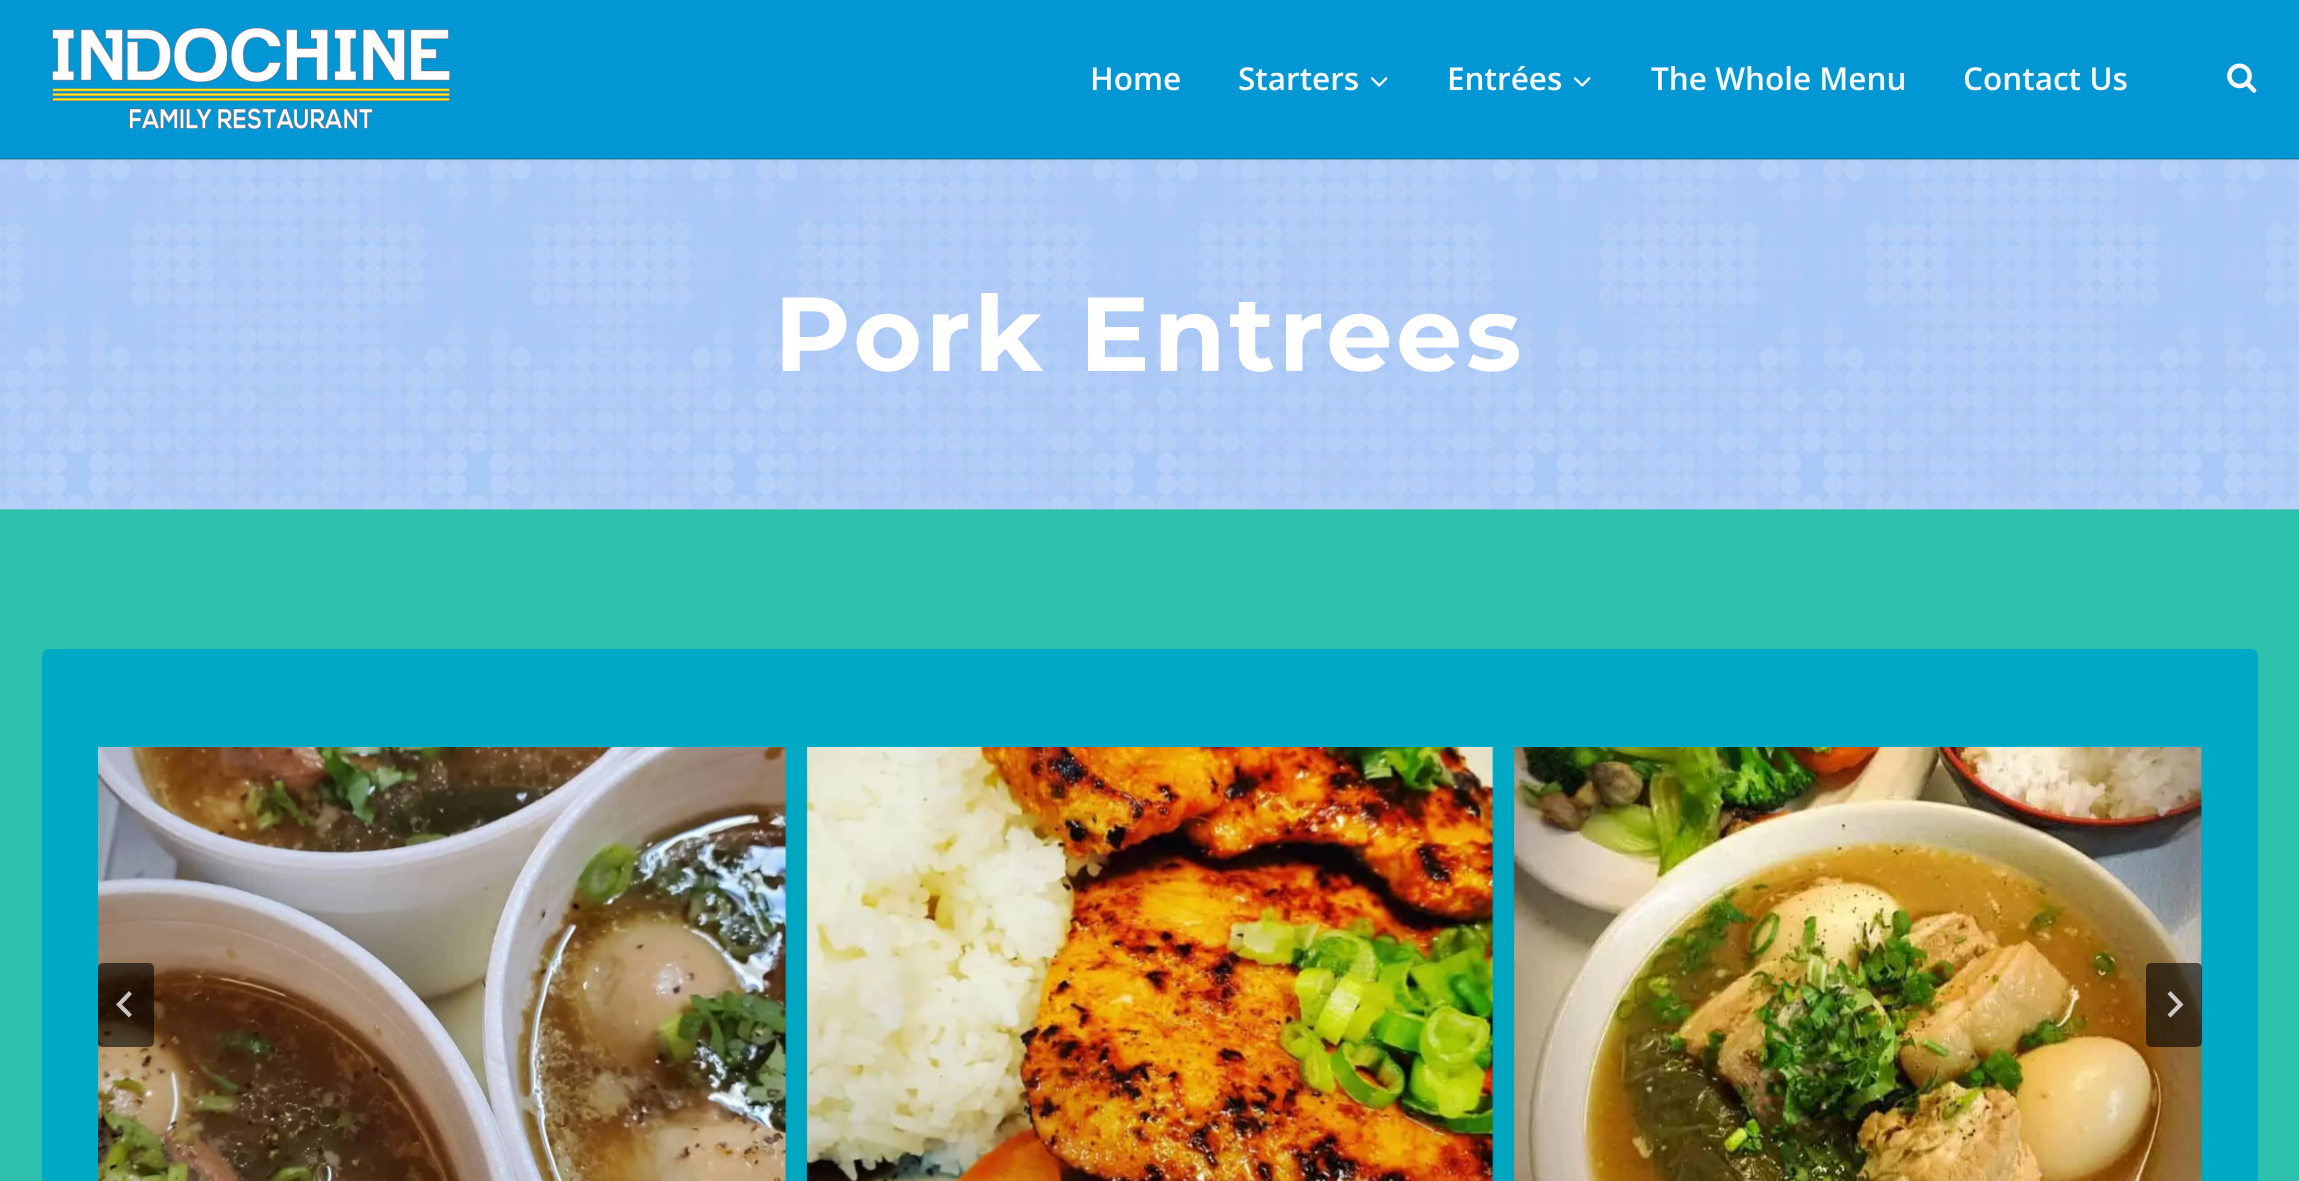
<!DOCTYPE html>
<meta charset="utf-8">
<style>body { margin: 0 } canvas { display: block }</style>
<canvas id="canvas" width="2299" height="1181"></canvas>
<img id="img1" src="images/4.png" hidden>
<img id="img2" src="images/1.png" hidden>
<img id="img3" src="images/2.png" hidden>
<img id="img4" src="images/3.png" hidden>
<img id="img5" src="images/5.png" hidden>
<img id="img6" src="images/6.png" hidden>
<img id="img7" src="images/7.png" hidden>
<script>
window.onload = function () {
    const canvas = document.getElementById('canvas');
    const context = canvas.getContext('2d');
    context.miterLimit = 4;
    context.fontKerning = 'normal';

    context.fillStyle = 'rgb(45, 192, 173)';
    context.fillRect(0, 0, 2299, 1181);
    context.fillStyle = 'rgb(1, 151, 212)';
    context.fillRect(0, 0, 2299, 159);
    context.drawImage(document.getElementById('img1'), 0, 159, 2299, 351);
    context.fillStyle = 'rgba(45, 62, 80, 0.25)';
    context.fillRect(0, 158, 2299, 2);
    context.drawImage(document.getElementById('img2'), 51, 27, 399, 103);
    context.drawImage(document.getElementById('img3'), 1370, 77, 18, 10);
    context.drawImage(document.getElementById('img3'), 1573, 77, 18, 10);
    context.drawImage(document.getElementById('img4'), 2227, 63, 30, 30);
    context.fillStyle = 'rgb(0, 170, 196)';
    context.beginPath();
    context.roundRect(42, 649, 2216, 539, 7);
    context.fill();
    context.save();
    context.beginPath();
    context.rect(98, 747, 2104, 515);
    context.clip();
    context.fillStyle = 'rgba(0, 0, 0, 0.45)';
    context.filter = 'blur(14px)';
    context.beginPath();
    context.rect(116, 800, 652, 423);
    context.fill();
    context.filter = 'none';
    context.restore();
    context.drawImage(document.getElementById('img5'), 98, 747, 689, 434);
    context.fillStyle = 'rgba(0, 0, 0, 0.45)';
    context.filter = 'blur(14px)';
    context.beginPath();
    context.rect(824, 800, 651, 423);
    context.fill();
    context.filter = 'none';
    context.drawImage(document.getElementById('img6'), 806, 747, 688, 434);
    context.save();
    context.beginPath();
    context.rect(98, 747, 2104, 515);
    context.clip();
    context.filter = 'blur(14px)';
    context.beginPath();
    context.rect(1531, 800, 653, 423);
    context.fill();
    context.filter = 'none';
    context.restore();
    context.drawImage(document.getElementById('img7'), 1513, 747, 689, 434);
    context.fillStyle = 'rgba(0, 0, 0, 0.6)';
    context.beginPath();
    context.roundRect(98, 963, 56, 84, 5);
    context.fill();
    context.fillStyle = 'rgba(255, 255, 255, 0.75)';
    context.beginPath();
    context.moveTo(129, 991);
    context.lineTo(132, 994);
    context.lineTo(122, 1004.5);
    context.lineTo(132, 1014.5);
    context.lineTo(129, 1017.5);
    context.lineTo(116, 1004.5);
    context.closePath();
    context.fill();
    context.fillStyle = 'rgba(0, 0, 0, 0.6)';
    context.beginPath();
    context.roundRect(2146, 963, 56, 84, 5);
    context.fill();
    context.fillStyle = 'rgba(255, 255, 255, 0.75)';
    context.beginPath();
    context.moveTo(2170.5, 991);
    context.lineTo(2167.5, 994);
    context.lineTo(2177.5, 1004.5);
    context.lineTo(2167.5, 1014.5);
    context.lineTo(2170.5, 1017.5);
    context.lineTo(2183.5, 1004.5);
    context.closePath();
    context.fill();
    context.font = '600 31.5px Open Sans';
    context.fillStyle = 'rgb(247, 250, 252)';
    context.fillText('Home', 1090, 90);
    context.fillText('Starters', 1238, 90);
    context.fillText('Entrées', 1447, 90);
    context.fillText('The Whole Menu', 1651, 90);
    context.fillText('Contact Us', 1963, 90);
    context.letterSpacing = '3.5px';
    context.font = 'bold 105px Montserrat';
    context.fillStyle = 'rgb(255, 255, 255)';
    context.fillText('Pork Entrees', 774, 371);
};
</script>
